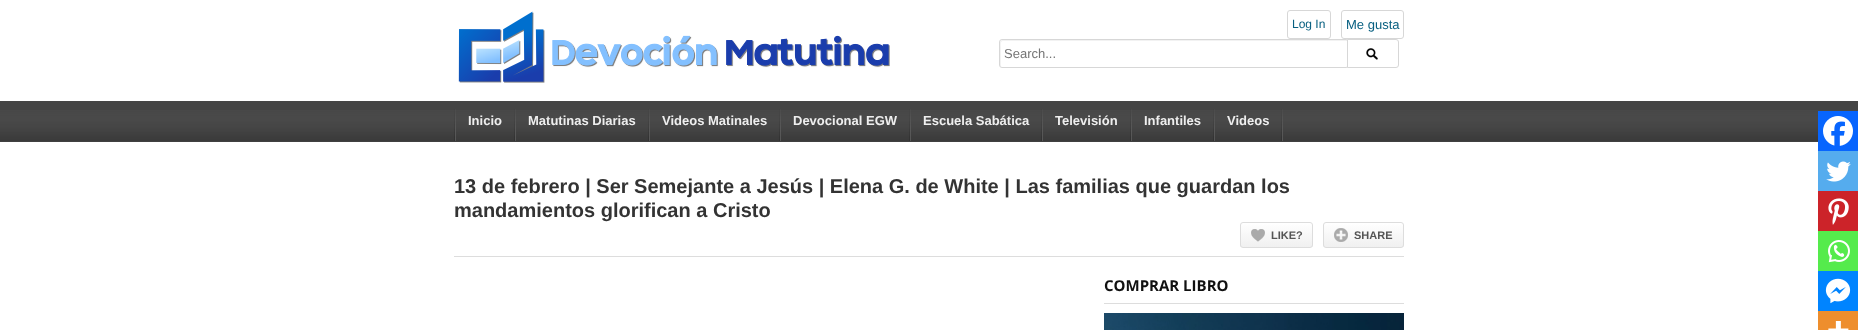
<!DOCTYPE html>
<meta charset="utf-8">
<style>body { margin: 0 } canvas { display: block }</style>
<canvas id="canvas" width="1858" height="330"></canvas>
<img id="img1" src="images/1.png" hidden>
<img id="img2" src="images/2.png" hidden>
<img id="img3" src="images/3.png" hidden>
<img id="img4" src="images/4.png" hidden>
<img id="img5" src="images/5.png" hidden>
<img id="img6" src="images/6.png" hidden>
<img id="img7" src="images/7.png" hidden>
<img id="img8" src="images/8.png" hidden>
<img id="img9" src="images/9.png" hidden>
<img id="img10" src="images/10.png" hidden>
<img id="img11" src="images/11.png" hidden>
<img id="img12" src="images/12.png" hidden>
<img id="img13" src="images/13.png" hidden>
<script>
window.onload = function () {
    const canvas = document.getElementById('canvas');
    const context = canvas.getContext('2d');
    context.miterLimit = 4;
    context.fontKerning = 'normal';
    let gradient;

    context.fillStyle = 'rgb(255, 255, 255)';
    context.fillRect(0, 0, 1858, 330);
    context.drawImage(document.getElementById('img1'), 458, 11, 432, 72);
    context.beginPath();
    context.roundRect(1287.5, 10.5, 43, 28, 2.5);
    context.strokeStyle = 'rgb(215, 215, 215)';
    context.stroke();
    context.beginPath();
    context.roundRect(1341.5, 10.5, 62, 28, 2.5);
    context.stroke();
    context.fillStyle = 'rgb(242, 242, 242)';
    context.beginPath();
    context.moveTo(1003, 41);
    context.lineTo(1348, 41);
    context.lineTo(1347, 40);
    context.lineTo(1002, 40);
    context.lineTo(1001, 41);
    context.lineTo(1000, 42);
    context.lineTo(1000, 54);
    context.bezierCurveTo(1000, 56, 999, 66, 1001, 67);
    context.lineTo(1001, 47);
    context.bezierCurveTo(1001, 46, 1000, 41, 1003, 41);
    context.closePath();
    context.fill();
    context.beginPath();
    context.roundRect(999.5, 39.5, 349, 28, 2.5);
    context.stroke();
    context.fillStyle = 'rgb(255, 255, 255)';
    context.beginPath();
    context.roundRect(1347.5, 39.5, 51, 28, [0, 2.5, 2.5, 0]);
    context.fill();
    context.stroke();
    context.drawImage(document.getElementById('img2'), 1366, 48, 12, 12);
    context.fillStyle = 'rgb(68, 68, 68)';
    context.fillRect(0, 101, 1858, 40);
    context.drawImage(document.getElementById('img3'), 0, 110, 1858, 31);
    context.fillStyle = 'rgb(64, 64, 64)';
    context.fillRect(0, 141, 1818, 1);
    context.drawImage(document.getElementById('img4'), 1281, 109, 2, 32);
    context.drawImage(document.getElementById('img4'), 454, 109, 2, 32);
    context.drawImage(document.getElementById('img4'), 514, 109, 2, 32);
    context.drawImage(document.getElementById('img4'), 648, 109, 2, 32);
    context.drawImage(document.getElementById('img4'), 779, 109, 2, 32);
    context.drawImage(document.getElementById('img4'), 909, 109, 2, 32);
    context.drawImage(document.getElementById('img4'), 1041, 109, 2, 32);
    context.drawImage(document.getElementById('img4'), 1130, 109, 2, 32);
    context.drawImage(document.getElementById('img4'), 1213, 109, 2, 32);
    context.fillStyle = 'rgb(221, 221, 221)';
    context.fillRect(454, 256, 950, 1);
    context.save();
    context.beginPath();
    context.roundRect(1240, 222, 73, 26, 3);
    context.clip();
    gradient = context.createLinearGradient(1277, 223, 1277, 247);
    gradient.addColorStop(0, 'rgb(255, 255, 255)');
    gradient.addColorStop(1, 'rgb(240, 240, 240)');
    context.fillStyle = gradient;
    context.fillRect(1240, 223, 73, 24);
    context.restore();
    context.beginPath();
    context.roundRect(1240.5, 222.5, 72, 25, 2.5);
    context.strokeStyle = 'rgb(221, 221, 221)';
    context.stroke();
    context.drawImage(document.getElementById('img5'), 1251, 229, 14, 13);
    context.save();
    context.beginPath();
    context.roundRect(1323, 222, 81, 26, 3);
    context.clip();
    gradient = context.createLinearGradient(1364, 223, 1364, 247);
    gradient.addColorStop(0, 'rgb(255, 255, 255)');
    gradient.addColorStop(1, 'rgb(240, 240, 240)');
    context.fillStyle = gradient;
    context.fillRect(1323, 223, 81, 24);
    context.restore();
    context.beginPath();
    context.roundRect(1323.5, 222.5, 80, 25, 2.5);
    context.stroke();
    context.drawImage(document.getElementById('img6'), 1334, 228, 14, 14);
    context.fillStyle = 'rgb(7, 101, 254)';
    context.fillRect(1818, 111, 40, 40);
    context.drawImage(document.getElementById('img7'), 1823, 116, 30, 30);
    context.fillStyle = 'rgb(85, 172, 238)';
    context.fillRect(1818, 151, 40, 40);
    context.drawImage(document.getElementById('img8'), 1826, 161, 25, 21);
    context.fillStyle = 'rgb(204, 35, 41)';
    context.fillRect(1818, 191, 40, 40);
    context.drawImage(document.getElementById('img9'), 1828, 198, 21, 27);
    context.fillStyle = 'rgb(85, 235, 76)';
    context.fillRect(1818, 231, 40, 40);
    context.drawImage(document.getElementById('img10'), 1828, 240, 22, 23);
    context.fillStyle = 'rgb(0, 132, 255)';
    context.fillRect(1818, 271, 40, 40);
    context.drawImage(document.getElementById('img11'), 1825, 278, 26, 26);
    context.fillStyle = 'rgb(238, 142, 45)';
    context.fillRect(1818, 311, 40, 19);
    context.drawImage(document.getElementById('img12'), 1828, 321, 21, 9);
    context.fillStyle = 'rgb(221, 221, 221)';
    context.fillRect(1104, 303, 300, 1);
    context.drawImage(document.getElementById('img13'), 1104, 313, 300, 17);
    context.font = '12px Liberation Sans';
    context.fillStyle = 'rgb(8, 96, 129)';
    context.fillText('Log In', 1292, 28);
    context.font = '13px Liberation Sans';
    context.fillText('Me gusta', 1346, 29);
    context.fillStyle = 'rgb(117, 117, 117)';
    context.fillText('Search...', 1004, 58);
    context.font = 'bold 13px Liberation Sans';
    context.fillStyle = 'rgb(238, 238, 238)';
    context.fillText('Inicio', 468, 125);
    context.fillText('Matutinas Diarias', 528, 125);
    context.fillText('Videos Matinales', 662, 125);
    context.fillText('Devocional EGW', 793, 125);
    context.fillText('Escuela Sabática', 923, 125);
    context.fillText('Televisión', 1055, 125);
    context.fillText('Infantiles', 1144, 125);
    context.fillText('Videos', 1227, 125);
    context.font = 'bold 20px Liberation Sans';
    context.fillStyle = 'rgb(51, 51, 51)';
    context.fillText('13 de febrero | Ser Semejante a Jesús | Elena G. de White | Las familias que guardan los', 454, 193);
    context.fillText('mandamientos glorifican a Cristo', 454, 217);
    context.font = 'bold 11px Liberation Sans';
    context.fillStyle = 'rgb(85, 85, 85)';
    context.fillText('LIKE?', 1271, 239);
    context.fillText('SHARE', 1354, 239);
    context.font = 'bold 15px Open Sans';
    context.fillStyle = 'rgb(17, 17, 17)';
    context.fillText('COMPRAR LIBRO', 1104, 291);
};
</script>
